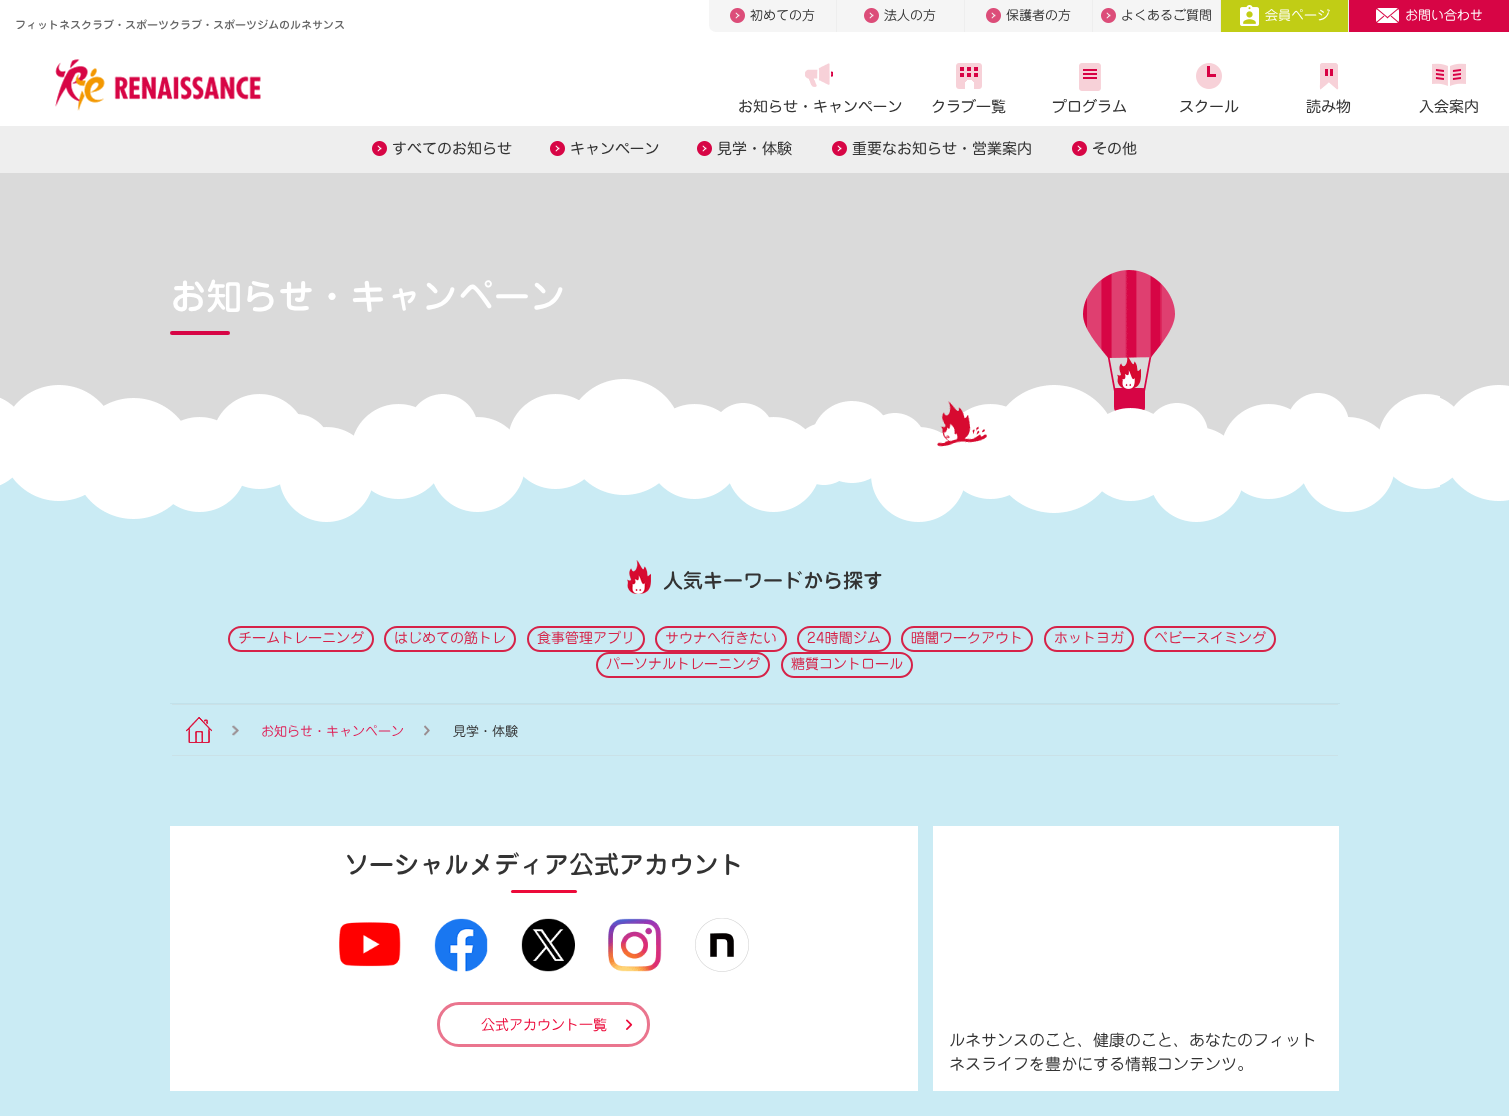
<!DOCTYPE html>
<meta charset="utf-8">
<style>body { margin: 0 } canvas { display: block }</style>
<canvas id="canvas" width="1509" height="1116"></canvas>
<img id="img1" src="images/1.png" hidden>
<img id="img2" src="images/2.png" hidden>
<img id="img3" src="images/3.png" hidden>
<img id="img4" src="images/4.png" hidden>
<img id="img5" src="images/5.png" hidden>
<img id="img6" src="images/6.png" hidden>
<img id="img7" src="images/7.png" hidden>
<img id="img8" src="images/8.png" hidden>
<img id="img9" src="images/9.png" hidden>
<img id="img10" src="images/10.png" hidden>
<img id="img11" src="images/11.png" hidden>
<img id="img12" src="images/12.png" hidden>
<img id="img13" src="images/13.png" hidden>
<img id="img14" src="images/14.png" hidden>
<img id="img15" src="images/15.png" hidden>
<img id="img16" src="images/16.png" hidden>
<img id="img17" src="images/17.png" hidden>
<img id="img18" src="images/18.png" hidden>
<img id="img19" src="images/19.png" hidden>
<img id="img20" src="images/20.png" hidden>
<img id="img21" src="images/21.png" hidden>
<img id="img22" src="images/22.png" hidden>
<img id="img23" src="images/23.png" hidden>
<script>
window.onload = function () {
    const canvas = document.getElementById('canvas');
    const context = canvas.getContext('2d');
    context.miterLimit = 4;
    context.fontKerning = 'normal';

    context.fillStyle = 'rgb(202, 235, 244)';
    context.fillRect(0, 0, 1509, 1116);
    context.fillStyle = 'rgb(255, 255, 255)';
    context.fillRect(0, 0, 1509, 126);
    context.fillStyle = 'rgb(245, 245, 245)';
    context.beginPath();
    context.roundRect(709, 0, 800, 32, [0, 0, 0, 7]);
    context.fill();
    context.fillStyle = 'rgb(238, 238, 238)';
    context.fillRect(836, 0, 1, 32);
    context.drawImage(document.getElementById('img1'), 730, 8, 15, 15);
    context.fillRect(964, 0, 1, 32);
    context.drawImage(document.getElementById('img1'), 864, 8, 15, 15);
    context.fillRect(1092, 0, 1, 32);
    context.drawImage(document.getElementById('img1'), 986, 8, 15, 15);
    context.fillRect(1220, 0, 1, 32);
    context.drawImage(document.getElementById('img1'), 1101, 8, 15, 15);
    context.fillStyle = 'rgb(193, 205, 21)';
    context.fillRect(1221, 0, 127, 32);
    context.fillStyle = 'rgb(238, 238, 238)';
    context.fillRect(1348, 0, 1, 32);
    context.drawImage(document.getElementById('img2'), 1240, 5, 19, 21);
    context.fillStyle = 'rgb(215, 5, 69)';
    context.fillRect(1349, 0, 160, 32);
    context.drawImage(document.getElementById('img3'), 1376, 8, 23, 15);
    context.drawImage(document.getElementById('img4'), 55, 59, 206, 52);
    context.drawImage(document.getElementById('img5'), 956, 63, 26, 26);
    context.drawImage(document.getElementById('img6'), 1079, 63, 22, 28);
    context.drawImage(document.getElementById('img7'), 805, 63, 28, 24);
    context.fillStyle = 'rgb(238, 238, 238)';
    context.fillRect(0, 126, 1509, 47);
    context.drawImage(document.getElementById('img8'), 372, 141, 15, 15);
    context.drawImage(document.getElementById('img8'), 550, 141, 15, 15);
    context.drawImage(document.getElementById('img8'), 697, 141, 15, 15);
    context.drawImage(document.getElementById('img8'), 832, 141, 15, 15);
    context.drawImage(document.getElementById('img8'), 1072, 141, 15, 15);
    context.drawImage(document.getElementById('img9'), 1196, 63, 26, 26);
    context.drawImage(document.getElementById('img10'), 1319, 63, 20, 27);
    context.drawImage(document.getElementById('img11'), 1432, 63, 34, 23);
    context.fillStyle = 'rgb(218, 218, 218)';
    context.fillRect(0, 173, 1509, 263);
    context.fillStyle = 'rgb(215, 5, 69)';
    context.beginPath();
    context.roundRect(170, 331, 60, 4, 2);
    context.fill();
    context.drawImage(document.getElementById('img12'), 1083, 270, 92, 141);
    context.drawImage(document.getElementById('img13'), 0, 379, 1509, 143);
    context.fillStyle = 'rgb(193, 225, 234)';
    context.fillRect(170, 703, 1170, 1);
    context.drawImage(document.getElementById('img14'), 627, 560, 24, 34);
    context.beginPath();
    context.roundRect(229, 627, 144, 24, 12);
    context.strokeStyle = 'rgb(214, 34, 72)';
    context.lineWidth = 2;
    context.stroke();
    context.beginPath();
    context.roundRect(385, 627, 130, 24, 12);
    context.stroke();
    context.beginPath();
    context.roundRect(528, 627, 116, 24, 12);
    context.stroke();
    context.beginPath();
    context.roundRect(656, 627, 130, 24, 12);
    context.stroke();
    context.beginPath();
    context.roundRect(798, 627, 92, 24, 12);
    context.stroke();
    context.beginPath();
    context.roundRect(902, 627, 130, 24, 12);
    context.stroke();
    context.beginPath();
    context.roundRect(1045, 627, 88, 24, 12);
    context.stroke();
    context.beginPath();
    context.roundRect(1145, 627, 130, 24, 12);
    context.stroke();
    context.beginPath();
    context.roundRect(597, 653, 172, 24, 12);
    context.stroke();
    context.beginPath();
    context.roundRect(782, 653, 130, 24, 12);
    context.stroke();
    context.fillStyle = 'rgb(202, 225, 231)';
    context.fillRect(172, 704, 1166, 1);
    context.fillRect(172, 755, 1166, 1);
    context.drawImage(document.getElementById('img15'), 186, 717, 26, 26);
    context.drawImage(document.getElementById('img16'), 232, 725, 7, 11);
    context.drawImage(document.getElementById('img17'), 424, 725, 6, 11);
    context.fillStyle = 'rgb(255, 255, 255)';
    context.fillRect(170, 826, 748, 265);
    context.fillStyle = 'rgb(236, 10, 58)';
    context.beginPath();
    context.roundRect(511, 890, 66, 3, 1.5);
    context.fill();
    context.drawImage(document.getElementById('img18'), 339, 922, 62, 45);
    context.drawImage(document.getElementById('img19'), 434, 918, 54, 54);
    context.drawImage(document.getElementById('img20'), 521, 918, 54, 54);
    context.drawImage(document.getElementById('img21'), 608, 918, 54, 54);
    context.drawImage(document.getElementById('img22'), 695, 918, 54, 54);
    context.beginPath();
    context.roundRect(438.5, 1003.5, 210, 42, 20.5);
    context.strokeStyle = 'rgb(234, 117, 142)';
    context.lineWidth = 3;
    context.stroke();
    context.drawImage(document.getElementById('img23'), 626, 1019, 7, 11);
    context.fillStyle = 'rgb(255, 255, 255)';
    context.fillRect(933, 826, 406, 265);
    context.font = '13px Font';
    context.fillStyle = 'rgb(51, 51, 51)';
    context.fillText('初めての方', 750, 20);
    context.fillText('法人の方', 884, 20);
    context.fillText('保護者の方', 1006, 20);
    context.fillText('よくあるご質問', 1121, 20);
    context.fillStyle = 'rgb(255, 255, 255)';
    context.fillText('会員ページ', 1265, 20);
    context.fillText('お問い合わせ', 1405, 20);
    context.font = '500 11px Font';
    context.fillStyle = 'rgb(102, 102, 102)';
    context.fillText('フィットネスクラブ・スポーツクラブ・スポーツジムのルネサンス', 15, 29);
    context.font = '15px "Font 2"';
    context.fillStyle = 'rgb(51, 51, 51)';
    context.fillText('クラブ一覧', 931, 112);
    context.fillText('プログラム', 1052, 112);
    context.fillText('お知らせ・キャンペーン', 738, 112);
    context.fillText('すべてのお知らせ', 392, 154);
    context.fillText('キャンペーン', 570, 154);
    context.fillText('見学・体験', 717, 154);
    context.fillText('重要なお知らせ・営業案内', 852, 154);
    context.fillText('その他', 1092, 154);
    context.fillText('スクール', 1179, 112);
    context.fillText('読み物', 1306, 112);
    context.fillText('入会案内', 1419, 112);
    context.font = '500 36px Font';
    context.fillStyle = 'rgb(255, 255, 255)';
    context.fillText('お知らせ・キャンペーン', 170, 310);
    context.font = '500 20px Font';
    context.fillStyle = 'rgb(51, 51, 51)';
    context.fillText('人気キーワードから探す', 663, 588);
    context.font = '14px Font';
    context.fillStyle = 'rgb(214, 34, 72)';
    context.fillText('チームトレーニング', 238, 643);
    context.fillText('はじめての筋トレ', 394, 643);
    context.fillText('食事管理アプリ', 537, 643);
    context.fillText('サウナへ行きたい', 665, 643);
    context.fillText('24時間ジム', 807, 643);
    context.fillText('暗闇ワークアウト', 911, 643);
    context.fillText('ホットヨガ', 1054, 643);
    context.fillText('ベビースイミング', 1154, 643);
    context.fillText('パーソナルトレーニング', 606, 669);
    context.fillText('糖質コントロール', 791, 669);
    context.font = '13px Font';
    context.fillStyle = 'rgb(223, 31, 86)';
    context.fillText('お知らせ・キャンペーン', 261, 736);
    context.fillStyle = 'rgb(51, 51, 51)';
    context.fillText('見学・体験', 453, 736);
    context.font = '500 25px Font';
    context.fillText('ソーシャルメディア公式アカウント', 344, 874);
    context.font = '14px Font';
    context.fillStyle = 'rgb(236, 10, 58)';
    context.fillText('公式アカウント一覧', 481, 1030);
    context.font = '16px Font';
    context.fillStyle = 'rgb(51, 51, 51)';
    context.fillText('ルネサンスのこと、健康のこと、あなたのフィット', 949, 1046);
    context.fillText('ネスライフを豊かにする情報コンテンツ。', 949, 1070);
};
</script>
